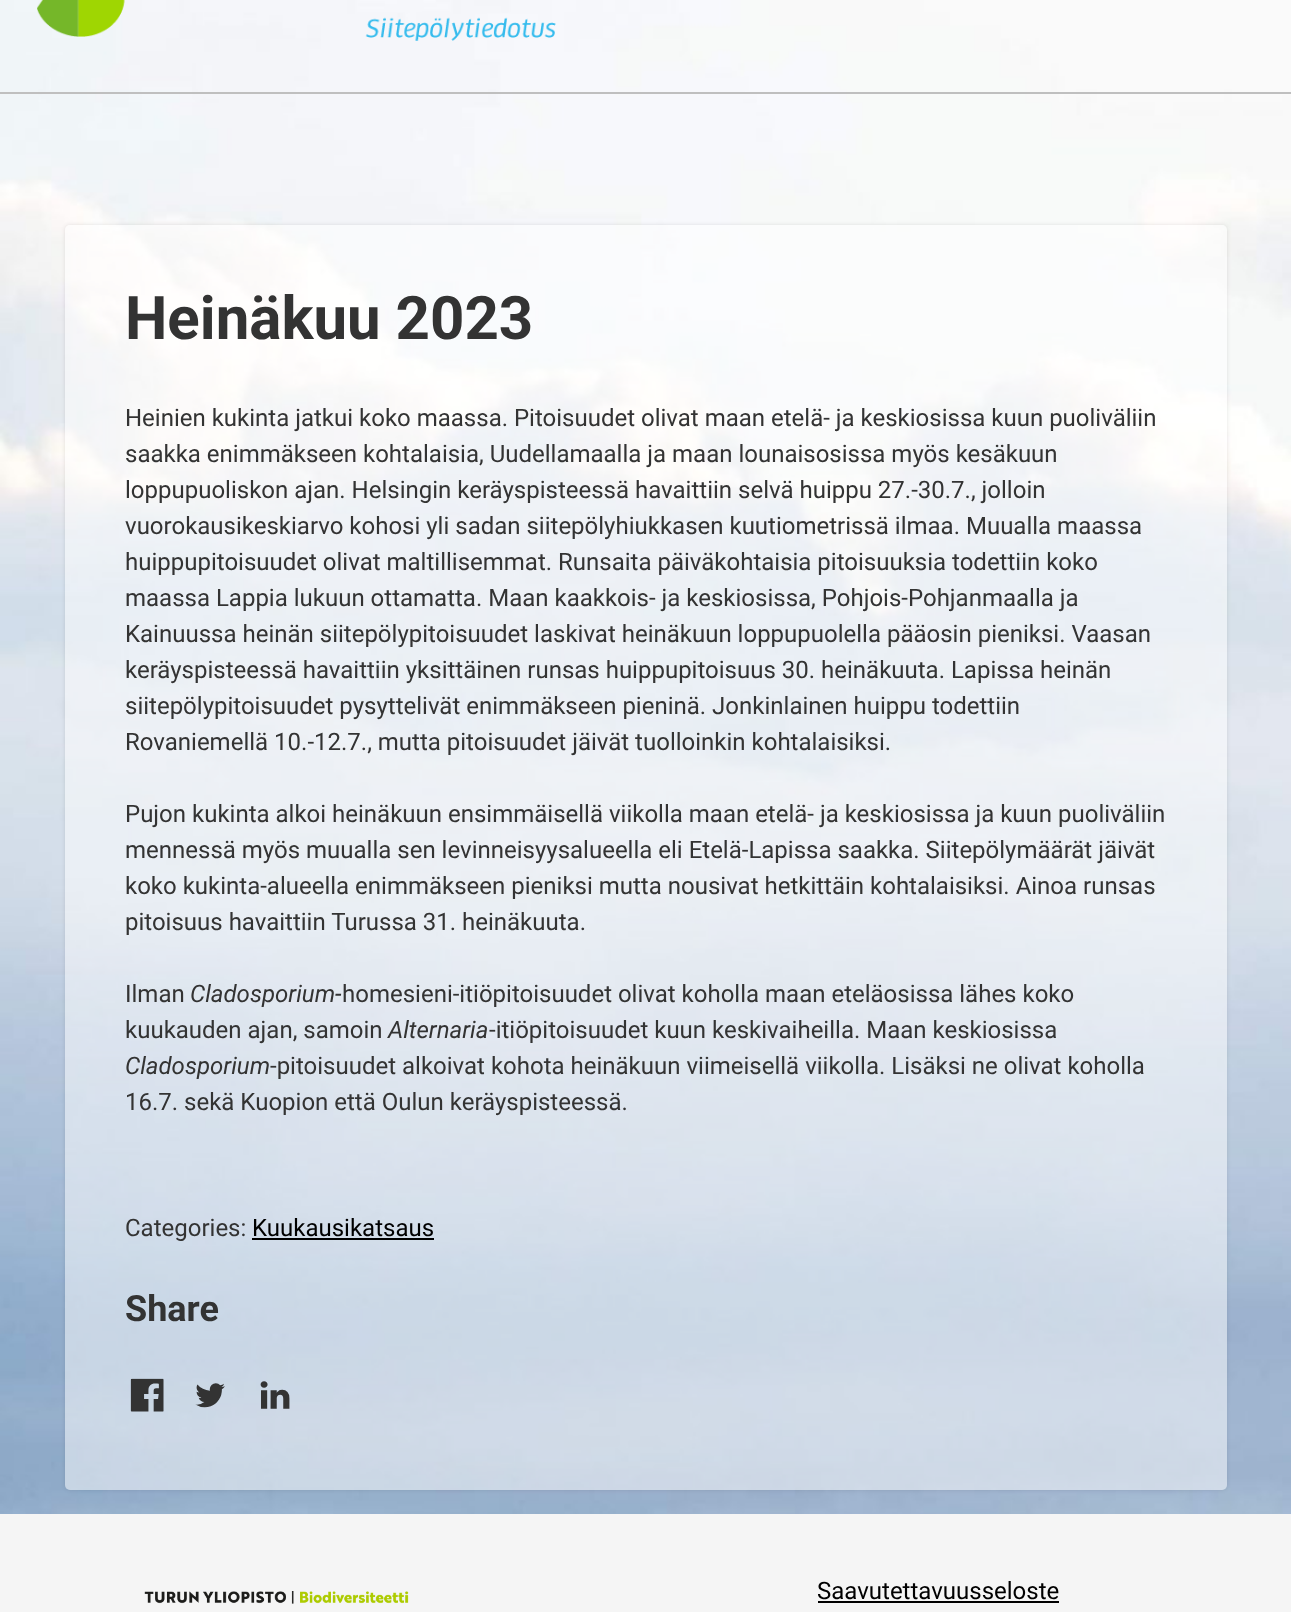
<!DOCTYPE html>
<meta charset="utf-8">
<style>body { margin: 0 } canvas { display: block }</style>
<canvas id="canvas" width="1291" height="1612"></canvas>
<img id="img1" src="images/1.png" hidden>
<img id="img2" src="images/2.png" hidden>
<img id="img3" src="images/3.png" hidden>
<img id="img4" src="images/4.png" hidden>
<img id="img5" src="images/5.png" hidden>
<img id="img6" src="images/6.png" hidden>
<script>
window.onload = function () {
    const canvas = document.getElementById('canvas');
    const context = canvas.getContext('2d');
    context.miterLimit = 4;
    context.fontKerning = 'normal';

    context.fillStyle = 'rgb(255, 255, 255)';
    context.fillRect(0, 0, 1291, 1612);
    context.drawImage(document.getElementById('img1'), 0, 0, 1291, 1514);
    context.fillStyle = 'rgb(191, 191, 191)';
    context.fillRect(0, 92, 1291, 2);
    context.drawImage(document.getElementById('img2'), 37, 0, 519, 41);
    context.save();
    context.beginPath();
    context.moveTo(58, 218);
    context.lineTo(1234, 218);
    context.lineTo(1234, 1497);
    context.lineTo(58, 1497);
    context.closePath();
    context.moveTo(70, 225);
    context.lineTo(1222, 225);
    context.bezierCurveTo(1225, 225, 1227, 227, 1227, 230);
    context.lineTo(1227, 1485);
    context.bezierCurveTo(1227, 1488, 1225, 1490, 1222, 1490);
    context.lineTo(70, 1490);
    context.bezierCurveTo(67, 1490, 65, 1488, 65, 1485);
    context.lineTo(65, 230);
    context.bezierCurveTo(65, 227, 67, 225, 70, 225);
    context.closePath();
    context.clip('evenodd');
    context.fillStyle = 'rgba(0, 0, 0, 0.1)';
    context.filter = 'blur(2px)';
    context.beginPath();
    context.roundRect(65, 225, 1162, 1265, 5);
    context.fill();
    context.filter = 'none';
    context.restore();
    context.fillStyle = 'rgba(255, 255, 255, 0.5)';
    context.beginPath();
    context.roundRect(65, 225, 1162, 1265, 5);
    context.fill();
    context.fillStyle = 'rgb(0, 0, 0)';
    context.fillRect(252, 1238, 182, 2);
    context.drawImage(document.getElementById('img3'), 130, 1378, 34, 34);
    context.drawImage(document.getElementById('img4'), 195, 1383, 30, 25);
    context.drawImage(document.getElementById('img5'), 260, 1381, 30, 28);
    context.fillStyle = 'rgb(245, 245, 245)';
    context.fillRect(0, 1514, 1291, 98);
    context.drawImage(document.getElementById('img6'), 144, 1591, 265, 13);
    context.fillStyle = 'rgb(0, 0, 0)';
    context.fillRect(818, 1601, 241, 2);
    context.font = 'bold 60px Roboto';
    context.fillStyle = 'rgb(51, 51, 51)';
    context.fillText('Heinäkuu 2023', 125, 339);
    context.font = '24px Roboto';
    context.fillText('Heinien kukinta jatkui koko maassa. Pitoisuudet olivat maan etelä- ja keskiosissa kuun puoliväliin', 125, 426);
    context.fillText('saakka enimmäkseen kohtalaisia, Uudellamaalla ja maan lounaisosissa myös kesäkuun', 125, 462);
    context.fillText('loppupuoliskon ajan. Helsingin keräyspisteessä havaittiin selvä huippu 27.-30.7., jolloin', 125, 498);
    context.fillText('vuorokausikeskiarvo kohosi yli sadan siitepölyhiukkasen kuutiometrissä ilmaa. Muualla maassa', 125, 534);
    context.fillText('huippupitoisuudet olivat maltillisemmat. Runsaita päiväkohtaisia pitoisuuksia todettiin koko', 125, 570);
    context.fillText('maassa Lappia lukuun ottamatta. Maan kaakkois- ja keskiosissa, Pohjois-Pohjanmaalla ja', 125, 606);
    context.fillText('Kainuussa heinän siitepölypitoisuudet laskivat heinäkuun loppupuolella pääosin pieniksi. Vaasan', 125, 642);
    context.fillText('keräyspisteessä havaittiin yksittäinen runsas huippupitoisuus 30. heinäkuuta. Lapissa heinän', 125, 678);
    context.fillText('siitepölypitoisuudet pysyttelivät enimmäkseen pieninä. Jonkinlainen huippu todettiin', 125, 714);
    context.fillText('Rovaniemellä 10.-12.7., mutta pitoisuudet jäivät tuolloinkin kohtalaisiksi.', 125, 750);
    context.fillText('Pujon kukinta alkoi heinäkuun ensimmäisellä viikolla maan etelä- ja keskiosissa ja kuun puoliväliin', 125, 822);
    context.fillText('mennessä myös muualla sen levinneisyysalueella eli Etelä-Lapissa saakka. Siitepölymäärät jäivät', 125, 858);
    context.fillText('koko kukinta-alueella enimmäkseen pieniksi mutta nousivat hetkittäin kohtalaisiksi. Ainoa runsas', 125, 894);
    context.fillText('pitoisuus havaittiin Turussa 31. heinäkuuta.', 125, 930);
    context.fillText('Ilman', 125, 1002);
    context.font = 'italic 24px Roboto';
    context.fillText('Cladosporium-', 190, 1002);
    context.font = '24px Roboto';
    context.fillText('homesieni-itiöpitoisuudet olivat koholla maan eteläosissa lähes koko', 342, 1002);
    context.fillText('kuukauden ajan, samoin', 125, 1038);
    context.font = 'italic 24px Roboto';
    context.fillText('Alternaria', 388, 1038);
    context.font = '24px Roboto';
    context.fillText('-itiöpitoisuudet kuun keskivaiheilla. Maan keskiosissa', 489, 1038);
    context.font = 'italic 24px Roboto';
    context.fillText('Cladosporium', 125, 1074);
    context.font = '24px Roboto';
    context.fillText('-pitoisuudet alkoivat kohota heinäkuun viimeisellä viikolla. Lisäksi ne olivat koholla', 270, 1074);
    context.fillText('16.7. sekä Kuopion että Oulun keräyspisteessä.', 125, 1110);
    context.fillText('Categories:', 125, 1236);
    context.fillStyle = 'rgb(0, 0, 0)';
    context.fillText('Kuukausikatsaus', 252, 1236);
    context.font = 'bold 36px Roboto';
    context.fillStyle = 'rgb(51, 51, 51)';
    context.fillText('Share', 125, 1321);
    context.font = '24px Roboto';
    context.fillStyle = 'rgb(0, 0, 0)';
    context.fillText('Saavutettavuusseloste', 817, 1599);
};
</script>
